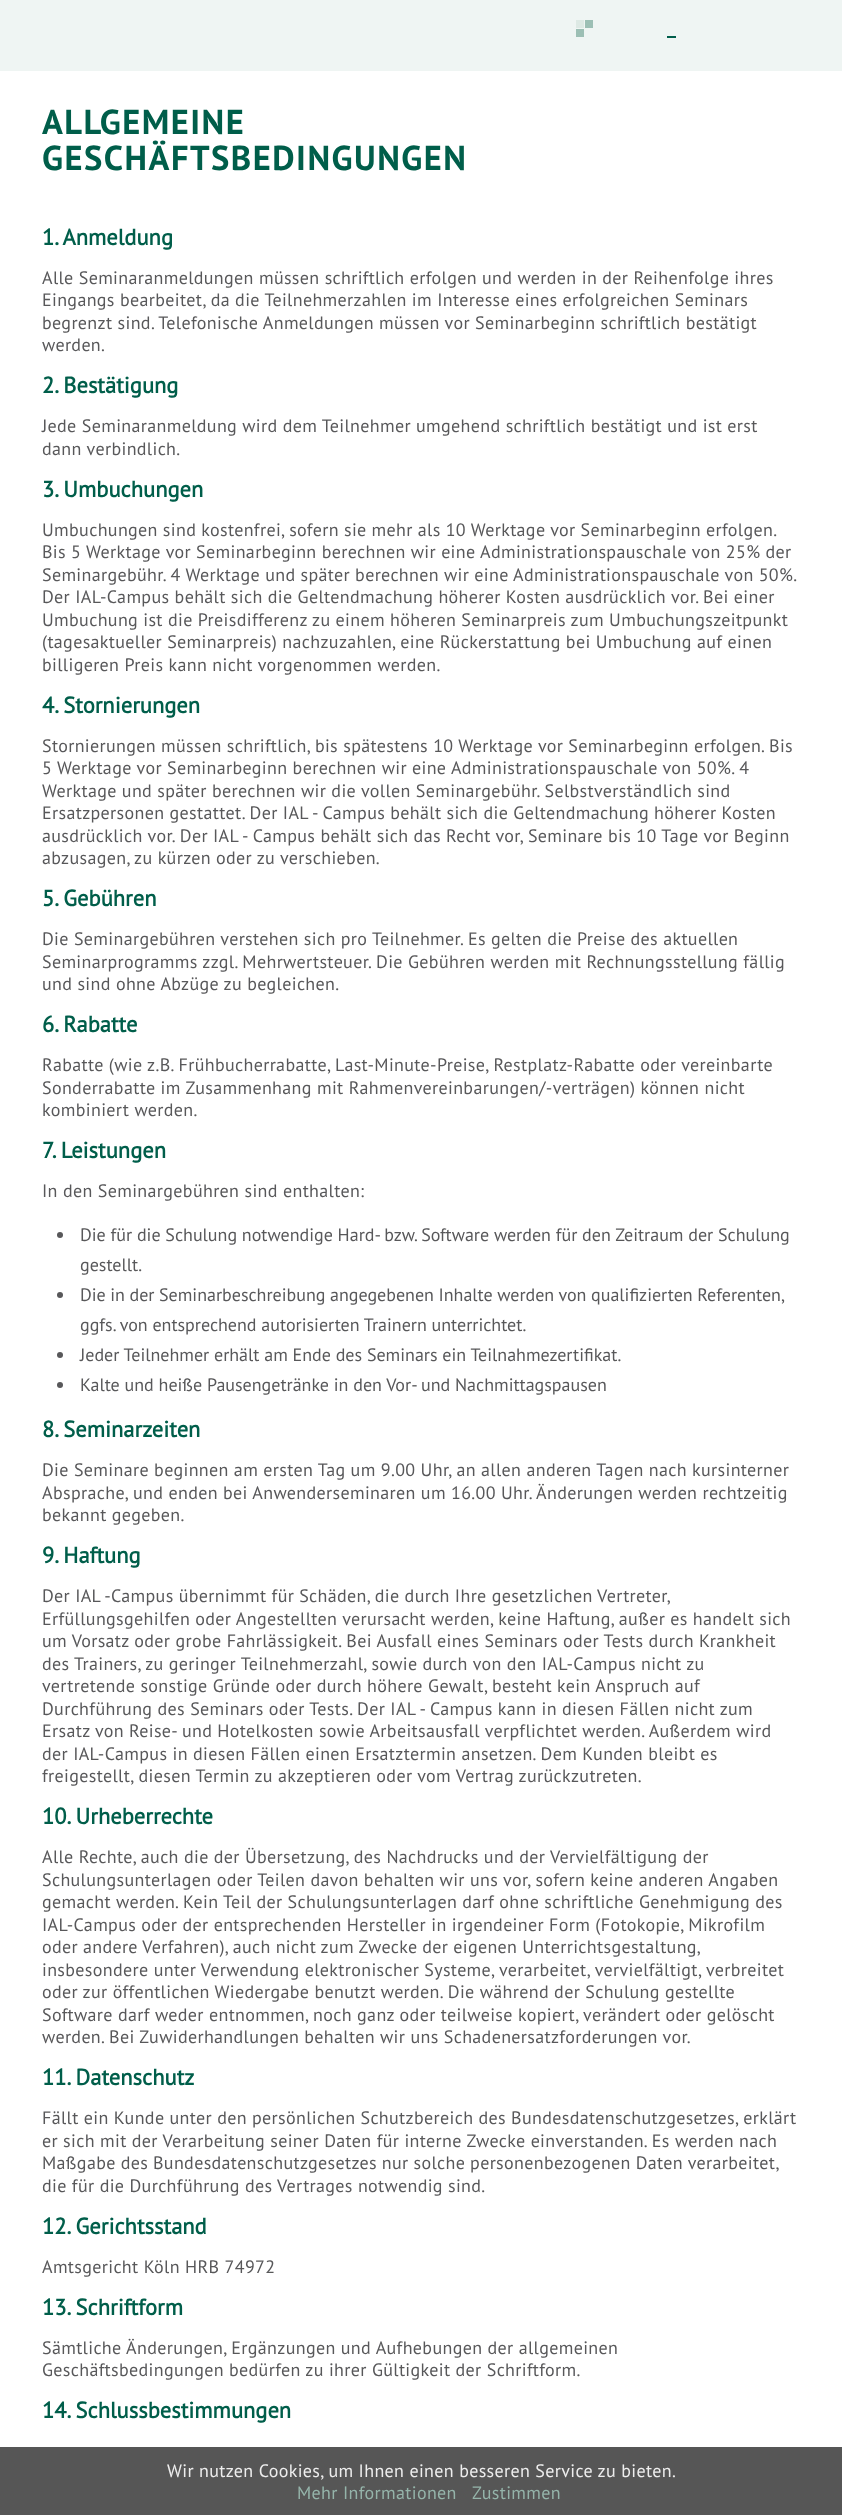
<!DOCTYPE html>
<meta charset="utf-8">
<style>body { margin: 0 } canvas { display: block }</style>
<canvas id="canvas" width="842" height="2515"></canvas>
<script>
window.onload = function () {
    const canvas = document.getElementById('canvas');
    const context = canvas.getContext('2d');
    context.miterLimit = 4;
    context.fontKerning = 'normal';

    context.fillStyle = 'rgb(255, 255, 255)';
    context.fillRect(0, 0, 842, 2515);
    context.fillStyle = 'rgb(239, 245, 243)';
    context.fillRect(0, 0, 842, 71);
    context.fillStyle = 'rgb(156, 191, 180)';
    context.fillRect(585, 20, 8, 8);
    context.fillStyle = 'rgb(221, 233, 228)';
    context.fillRect(576, 20, 8, 8);
    context.fillStyle = 'rgb(156, 191, 180)';
    context.fillRect(576, 29, 8, 8);
    context.fillStyle = 'rgb(0, 94, 74)';
    context.fillRect(667, 36, 9, 2);
    context.fillStyle = 'rgb(88, 88, 90)';
    context.beginPath();
    context.arc(60, 1235, 3, 0, 2 * Math.PI);
    context.fill();
    context.beginPath();
    context.arc(60, 1295, 3, 0, 2 * Math.PI);
    context.fill();
    context.beginPath();
    context.arc(60, 1355, 3, 0, 2 * Math.PI);
    context.fill();
    context.beginPath();
    context.arc(60, 1385, 3, 0, 2 * Math.PI);
    context.fill();
    context.fillStyle = 'rgba(68, 68, 68, 0.9)';
    context.fillRect(0, 2447, 842, 68);
    context.letterSpacing = '1.5px';
    context.font = 'bold 34.5px PT Sans';
    context.fillStyle = 'rgb(0, 94, 74)';
    context.fillText('ALLGEMEINE', 42, 134);
    context.fillText('GESCHÄFTSBEDINGUNGEN', 42, 170);
    context.letterSpacing = '0px';
    context.font = 'bold 22.5px "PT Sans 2"';
    context.fillText('1. Anmeldung', 42, 245);
    context.letterSpacing = '0.35px';
    context.font = '18px PT Sans';
    context.fillStyle = 'rgb(88, 88, 90)';
    context.fillText('Alle Seminaranmeldungen müssen schriftlich erfolgen und werden in der Reihenfolge ihres', 42, 284);
    context.fillText('Eingangs bearbeitet, da die Teilnehmerzahlen im Interesse eines erfolgreichen Seminars', 42, 306);
    context.fillText('begrenzt sind. Telefonische Anmeldungen müssen vor Seminarbeginn schriftlich bestätigt', 42, 329);
    context.fillText('werden.', 42, 351);
    context.letterSpacing = '0px';
    context.font = 'bold 22.5px "PT Sans 2"';
    context.fillStyle = 'rgb(0, 94, 74)';
    context.fillText('2. Bestätigung', 42, 393);
    context.letterSpacing = '0.35px';
    context.font = '18px PT Sans';
    context.fillStyle = 'rgb(88, 88, 90)';
    context.fillText('Jede Seminaranmeldung wird dem Teilnehmer umgehend schriftlich bestätigt und ist erst', 42, 432);
    context.fillText('dann verbindlich.', 42, 455);
    context.letterSpacing = '0px';
    context.font = 'bold 22.5px "PT Sans 2"';
    context.fillStyle = 'rgb(0, 94, 74)';
    context.fillText('3. Umbuchungen', 42, 497);
    context.letterSpacing = '0.35px';
    context.wordSpacing = '-0.1px';
    context.font = '18px PT Sans';
    context.fillStyle = 'rgb(88, 88, 90)';
    context.fillText('Umbuchungen sind kostenfrei, sofern sie mehr als 10 Werktage vor Seminarbeginn erfolgen.', 42, 536);
    context.wordSpacing = '0px';
    context.fillText('Bis 5 Werktage vor Seminarbeginn berechnen wir eine Administrationspauschale von 25% der', 42, 558);
    context.wordSpacing = '-0.1px';
    context.fillText('Seminargebühr. 4 Werktage und später berechnen wir eine Administrationspauschale von 50%.', 42, 581);
    context.wordSpacing = '0px';
    context.fillText('Der IAL-Campus behält sich die Geltendmachung höherer Kosten ausdrücklich vor. Bei einer', 42, 603);
    context.fillText('Umbuchung ist die Preisdifferenz zu einem höheren Seminarpreis zum Umbuchungszeitpunkt', 42, 626);
    context.fillText('(tagesaktueller Seminarpreis) nachzuzahlen, eine Rückerstattung bei Umbuchung auf einen', 42, 648);
    context.fillText('billigeren Preis kann nicht vorgenommen werden.', 42, 671);
    context.letterSpacing = '0px';
    context.font = 'bold 22.5px "PT Sans 2"';
    context.fillStyle = 'rgb(0, 94, 74)';
    context.fillText('4. Stornierungen', 42, 713);
    context.letterSpacing = '0.35px';
    context.font = '18px PT Sans';
    context.fillStyle = 'rgb(88, 88, 90)';
    context.fillText('Stornierungen müssen schriftlich, bis spätestens 10 Werktage vor Seminarbeginn erfolgen. Bis', 42, 752);
    context.fillText('5 Werktage vor Seminarbeginn berechnen wir eine Administrationspauschale von 50%. 4', 42, 774);
    context.fillText('Werktage und später berechnen wir die vollen Seminargebühr. Selbstverständlich sind', 42, 797);
    context.fillText('Ersatzpersonen gestattet. Der IAL - Campus behält sich die Geltendmachung höherer Kosten', 42, 819);
    context.fillText('ausdrücklich vor. Der IAL - Campus behält sich das Recht vor, Seminare bis 10 Tage vor Beginn', 42, 842);
    context.fillText('abzusagen, zu kürzen oder zu verschieben.', 42, 864);
    context.letterSpacing = '0px';
    context.font = 'bold 22.5px "PT Sans 2"';
    context.fillStyle = 'rgb(0, 94, 74)';
    context.fillText('5. Gebühren', 42, 906);
    context.letterSpacing = '0.35px';
    context.font = '18px PT Sans';
    context.fillStyle = 'rgb(88, 88, 90)';
    context.fillText('Die Seminargebühren verstehen sich pro Teilnehmer. Es gelten die Preise des aktuellen', 42, 945);
    context.fillText('Seminarprogramms zzgl. Mehrwertsteuer. Die Gebühren werden mit Rechnungsstellung fällig', 42, 968);
    context.fillText('und sind ohne Abzüge zu begleichen.', 42, 990);
    context.letterSpacing = '0px';
    context.font = 'bold 22.5px "PT Sans 2"';
    context.fillStyle = 'rgb(0, 94, 74)';
    context.fillText('6. Rabatte', 42, 1032);
    context.letterSpacing = '0.35px';
    context.font = '18px PT Sans';
    context.fillStyle = 'rgb(88, 88, 90)';
    context.fillText('Rabatte (wie z.B. Frühbucherrabatte, Last-Minute-Preise, Restplatz-Rabatte oder vereinbarte', 42, 1071);
    context.fillText('Sonderrabatte im Zusammenhang mit Rahmenvereinbarungen/-verträgen) können nicht', 42, 1094);
    context.fillText('kombiniert werden.', 42, 1116);
    context.letterSpacing = '0px';
    context.font = 'bold 22.5px "PT Sans 2"';
    context.fillStyle = 'rgb(0, 94, 74)';
    context.fillText('7. Leistungen', 42, 1158);
    context.letterSpacing = '0.35px';
    context.font = '18px PT Sans';
    context.fillStyle = 'rgb(88, 88, 90)';
    context.fillText('In den Seminargebühren sind enthalten:', 42, 1197);
    context.letterSpacing = '0px';
    context.fillText('Die für die Schulung notwendige Hard- bzw. Software werden für den Zeitraum der Schulung', 80, 1241);
    context.fillText('gestellt.', 80, 1271);
    context.wordSpacing = '-0.25px';
    context.fillText('Die in der Seminarbeschreibung angegebenen Inhalte werden von qualifizierten Referenten,', 80, 1301);
    context.wordSpacing = '0px';
    context.fillText('ggfs. von entsprechend autorisierten Trainern unterrichtet.', 80, 1331);
    context.fillText('Jeder Teilnehmer erhält am Ende des Seminars ein Teilnahmezertifikat.', 80, 1361);
    context.fillText('Kalte und heiße Pausengetränke in den Vor- und Nachmittagspausen', 80, 1391);
    context.font = 'bold 22.5px "PT Sans 2"';
    context.fillStyle = 'rgb(0, 94, 74)';
    context.fillText('8. Seminarzeiten', 42, 1437);
    context.letterSpacing = '0.35px';
    context.font = '18px PT Sans';
    context.fillStyle = 'rgb(88, 88, 90)';
    context.fillText('Die Seminare beginnen am ersten Tag um 9.00 Uhr, an allen anderen Tagen nach kursinterner', 42, 1476);
    context.fillText('Absprache, und enden bei Anwenderseminaren um 16.00 Uhr. Änderungen werden rechtzeitig', 42, 1499);
    context.fillText('bekannt gegeben.', 42, 1521);
    context.letterSpacing = '0px';
    context.font = 'bold 22.5px "PT Sans 2"';
    context.fillStyle = 'rgb(0, 94, 74)';
    context.fillText('9. Haftung', 42, 1563);
    context.letterSpacing = '0.35px';
    context.wordSpacing = '-0.1px';
    context.font = '18px PT Sans';
    context.fillStyle = 'rgb(88, 88, 90)';
    context.fillText('Der IAL -Campus übernimmt für Schäden, die durch Ihre gesetzlichen Vertreter,', 42, 1602);
    context.wordSpacing = '0px';
    context.fillText('Erfüllungsgehilfen oder Angestellten verursacht werden, keine Haftung, außer es handelt sich', 42, 1625);
    context.fillText('um Vorsatz oder grobe Fahrlässigkeit. Bei Ausfall eines Seminars oder Tests durch Krankheit', 42, 1647);
    context.fillText('des Trainers, zu geringer Teilnehmerzahl, sowie durch von den IAL-Campus nicht zu', 42, 1670);
    context.fillText('vertretende sonstige Gründe oder durch höhere Gewalt, besteht kein Anspruch auf', 42, 1692);
    context.fillText('Durchführung des Seminars oder Tests. Der IAL - Campus kann in diesen Fällen nicht zum', 42, 1715);
    context.fillText('Ersatz von Reise- und Hotelkosten sowie Arbeitsausfall verpflichtet werden. Außerdem wird', 42, 1737);
    context.fillText('der IAL-Campus in diesen Fällen einen Ersatztermin ansetzen. Dem Kunden bleibt es', 42, 1760);
    context.fillText('freigestellt, diesen Termin zu akzeptieren oder vom Vertrag zurückzutreten.', 42, 1782);
    context.letterSpacing = '0px';
    context.font = 'bold 22.5px "PT Sans 2"';
    context.fillStyle = 'rgb(0, 94, 74)';
    context.fillText('10. Urheberrechte', 42, 1824);
    context.letterSpacing = '0.35px';
    context.font = '18px PT Sans';
    context.fillStyle = 'rgb(88, 88, 90)';
    context.fillText('Alle Rechte, auch die der Übersetzung, des Nachdrucks und der Vervielfältigung der', 42, 1863);
    context.fillText('Schulungsunterlagen oder Teilen davon behalten wir uns vor, sofern keine anderen Angaben', 42, 1886);
    context.fillText('gemacht werden. Kein Teil der Schulungsunterlagen darf ohne schriftliche Genehmigung des', 42, 1908);
    context.fillText('IAL-Campus oder der entsprechenden Hersteller in irgendeiner Form (Fotokopie, Mikrofilm', 42, 1931);
    context.wordSpacing = '-0.25px';
    context.fillText('oder andere Verfahren), auch nicht zum Zwecke der eigenen Unterrichtsgestaltung,', 42, 1953);
    context.wordSpacing = '0px';
    context.fillText('insbesondere unter Verwendung elektronischer Systeme, verarbeitet, vervielfältigt, verbreitet', 42, 1976);
    context.fillText('oder zur öffentlichen Wiedergabe benutzt werden. Die während der Schulung gestellte', 42, 1998);
    context.fillText('Software darf weder entnommen, noch ganz oder teilweise kopiert, verändert oder gelöscht', 42, 2021);
    context.fillText('werden. Bei Zuwiderhandlungen behalten wir uns Schadenersatzforderungen vor.', 42, 2043);
    context.letterSpacing = '0px';
    context.font = 'bold 22.5px "PT Sans 2"';
    context.fillStyle = 'rgb(0, 94, 74)';
    context.fillText('11. Datenschutz', 42, 2085);
    context.letterSpacing = '0.35px';
    context.font = '18px PT Sans';
    context.fillStyle = 'rgb(88, 88, 90)';
    context.fillText('Fällt ein Kunde unter den persönlichen Schutzbereich des Bundesdatenschutzgesetzes, erklärt', 42, 2124);
    context.fillText('er sich mit der Verarbeitung seiner Daten für interne Zwecke einverstanden. Es werden nach', 42, 2147);
    context.wordSpacing = '-0.25px';
    context.fillText('Maßgabe des Bundesdatenschutzgesetzes nur solche personenbezogenen Daten verarbeitet,', 42, 2169);
    context.wordSpacing = '0px';
    context.fillText('die für die Durchführung des Vertrages notwendig sind.', 42, 2192);
    context.letterSpacing = '0px';
    context.font = 'bold 22.5px "PT Sans 2"';
    context.fillStyle = 'rgb(0, 94, 74)';
    context.fillText('12. Gerichtsstand', 42, 2234);
    context.letterSpacing = '0.35px';
    context.font = '18px PT Sans';
    context.fillStyle = 'rgb(88, 88, 90)';
    context.fillText('Amtsgericht Köln HRB 74972', 42, 2273);
    context.letterSpacing = '0px';
    context.font = 'bold 22.5px "PT Sans 2"';
    context.fillStyle = 'rgb(0, 94, 74)';
    context.fillText('13. Schriftform', 42, 2315);
    context.letterSpacing = '0.35px';
    context.font = '18px PT Sans';
    context.fillStyle = 'rgb(88, 88, 90)';
    context.fillText('Sämtliche Änderungen, Ergänzungen und Aufhebungen der allgemeinen', 42, 2354);
    context.fillText('Geschäftsbedingungen bedürfen zu ihrer Gültigkeit der Schriftform.', 42, 2376);
    context.letterSpacing = '0px';
    context.font = 'bold 22.5px "PT Sans 2"';
    context.fillStyle = 'rgb(0, 94, 74)';
    context.fillText('14. Schlussbestimmungen', 42, 2418);
    context.letterSpacing = '0.35px';
    context.font = '18px PT Sans';
    context.fillStyle = 'rgb(238, 238, 238)';
    context.fillText('Wir nutzen Cookies, um Ihnen einen besseren Service zu bieten.', 167, 2477);
    context.fillStyle = 'rgb(149, 180, 170)';
    context.fillText('Mehr Informationen', 297, 2499);
    context.fillText('Zustimmen', 472, 2499);
};
</script>
